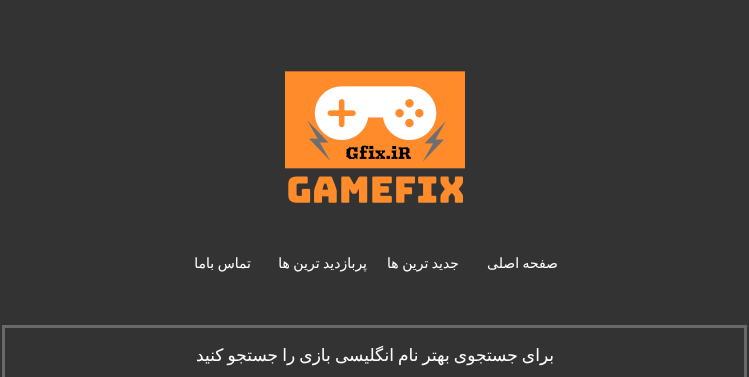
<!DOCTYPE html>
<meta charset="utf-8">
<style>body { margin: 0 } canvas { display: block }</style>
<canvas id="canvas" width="749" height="377"></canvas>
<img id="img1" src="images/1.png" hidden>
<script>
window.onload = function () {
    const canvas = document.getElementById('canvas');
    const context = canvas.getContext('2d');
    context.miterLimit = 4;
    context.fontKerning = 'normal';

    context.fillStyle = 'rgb(51, 51, 51)';
    context.fillRect(0, 0, 749, 377);
    context.drawImage(document.getElementById('img1'), 285, 71, 180, 132);
    context.beginPath();
    context.moveTo(3.5, 326.5);
    context.lineTo(745.5, 326.5);
    context.lineTo(745.5, 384.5);
    context.lineTo(3.5, 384.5);
    context.closePath();
    context.strokeStyle = 'rgb(105, 105, 105)';
    context.lineWidth = 3;
    context.stroke();
    context.wordSpacing = '-1px';
    context.direction = 'rtl';
    context.font = '14px DejaVu Sans';
    context.fillStyle = 'rgb(255, 255, 255)';
    context.fillText('صفحه اصلی', 558, 268);
    context.fillText('جدید ترین ها', 459, 268);
    context.fillText('پربازدید ترین ها', 367, 268);
    context.fillText('تماس باما', 251, 268);
    context.wordSpacing = '-1.25px';
    context.font = '17px DejaVu Sans';
    context.fillText('برای جستجوی بهتر نام انگلیسی بازی را جستجو کنید', 554, 361);
};
</script>
